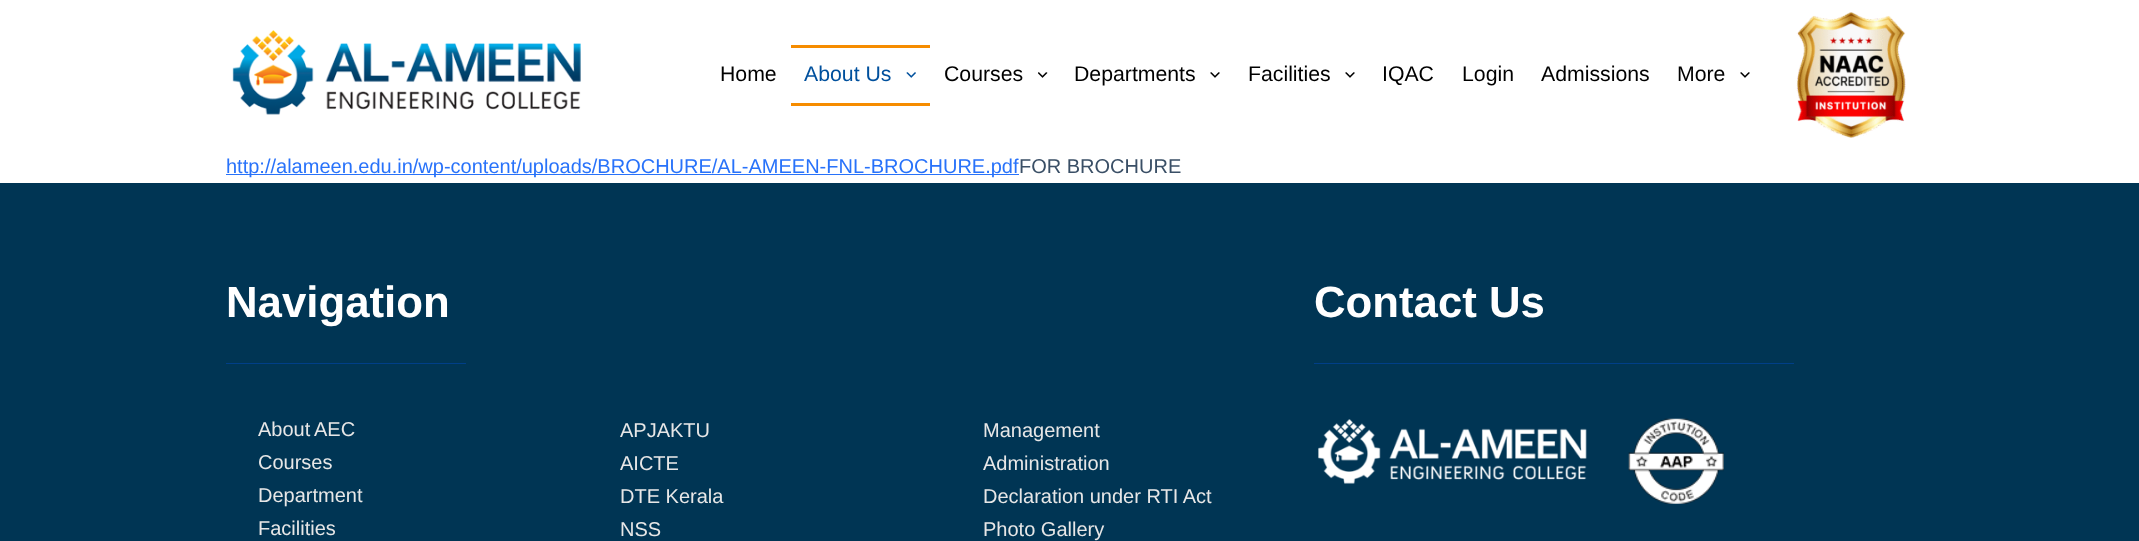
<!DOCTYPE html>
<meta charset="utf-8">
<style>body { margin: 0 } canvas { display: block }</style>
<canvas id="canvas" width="2139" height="541"></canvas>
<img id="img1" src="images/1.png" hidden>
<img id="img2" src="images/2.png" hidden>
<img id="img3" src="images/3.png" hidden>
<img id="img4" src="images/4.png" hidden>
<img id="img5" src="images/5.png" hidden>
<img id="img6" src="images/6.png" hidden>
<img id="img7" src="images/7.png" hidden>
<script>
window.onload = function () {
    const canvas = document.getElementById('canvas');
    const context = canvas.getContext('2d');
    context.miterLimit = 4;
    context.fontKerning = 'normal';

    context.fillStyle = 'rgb(255, 255, 255)';
    context.fillRect(0, 0, 2139, 541);
    context.drawImage(document.getElementById('img1'), 232, 30, 349, 85);
    context.fillStyle = 'rgb(246, 140, 0)';
    context.fillRect(791, 45, 139, 3);
    context.drawImage(document.getElementById('img2'), 906, 72, 10, 6);
    context.fillRect(791, 103, 139, 3);
    context.drawImage(document.getElementById('img3'), 1038, 72, 10, 6);
    context.drawImage(document.getElementById('img4'), 1210, 72, 10, 6);
    context.drawImage(document.getElementById('img4'), 1345, 72, 10, 6);
    context.drawImage(document.getElementById('img4'), 1740, 72, 10, 6);
    context.drawImage(document.getElementById('img5'), 1796, 12, 110, 126);
    context.fillStyle = 'rgb(40, 114, 250)';
    context.fillRect(226, 174, 793, 1);
    context.fillStyle = 'rgb(0, 53, 84)';
    context.fillRect(0, 183, 2139, 358);
    context.fillStyle = 'rgb(0, 63, 136)';
    context.fillRect(226, 363, 240, 1);
    context.fillRect(1314, 363, 480, 1);
    context.drawImage(document.getElementById('img6'), 1318, 419, 269, 65);
    context.drawImage(document.getElementById('img7'), 1628, 418, 96, 86);
    context.font = '21.25px Liberation Sans';
    context.fillStyle = 'rgb(0, 0, 0)';
    context.fillText('Home', 720, 81);
    context.fillStyle = 'rgb(0, 80, 157)';
    context.fillText('About Us', 804, 81);
    context.fillStyle = 'rgb(0, 0, 0)';
    context.fillText('Courses', 944, 81);
    context.fillText('Departments', 1074, 81);
    context.fillText('Facilities', 1248, 81);
    context.fillText('IQAC', 1382, 81);
    context.fillText('Login', 1462, 81);
    context.fillText('Admissions', 1541, 81);
    context.fillText('More', 1677, 81);
    context.font = '20px Liberation Sans';
    context.fillStyle = 'rgb(40, 114, 250)';
    context.fillText('http://alameen.edu.in/wp-content/uploads/BROCHURE/AL-AMEEN-FNL-BROCHURE.pdf', 226, 173);
    context.fillStyle = 'rgb(58, 79, 102)';
    context.fillText('FOR BROCHURE', 1019, 173);
    context.font = 'bold 43.75px Liberation Sans';
    context.fillStyle = 'rgb(255, 255, 255)';
    context.fillText('Navigation', 226, 317);
    context.font = '20px Liberation Sans';
    context.fillStyle = 'rgb(231, 231, 231)';
    context.fillText('About', 258, 436);
    context.fillText('AEC', 314, 436);
    context.fillText('Courses', 258, 469);
    context.fillText('Department', 258, 502);
    context.fillText('Facilities', 258, 535);
    context.font = 'bold 43.75px Liberation Sans';
    context.fillStyle = 'rgb(255, 255, 255)';
    context.fillText('Contact Us', 1314, 317);
    context.font = '20px Liberation Sans';
    context.fillStyle = 'rgb(231, 231, 231)';
    context.fillText('APJAKTU', 620, 437);
    context.fillText('AICTE', 620, 470);
    context.fillText('DTE Kerala', 620, 503);
    context.fillText('NSS', 620, 536);
    context.fillText('Management', 983, 437);
    context.fillText('Administration', 983, 470);
    context.fillText('Declaration under RTI Act', 983, 503);
    context.fillText('Photo Gallery', 983, 536);
};
</script>
